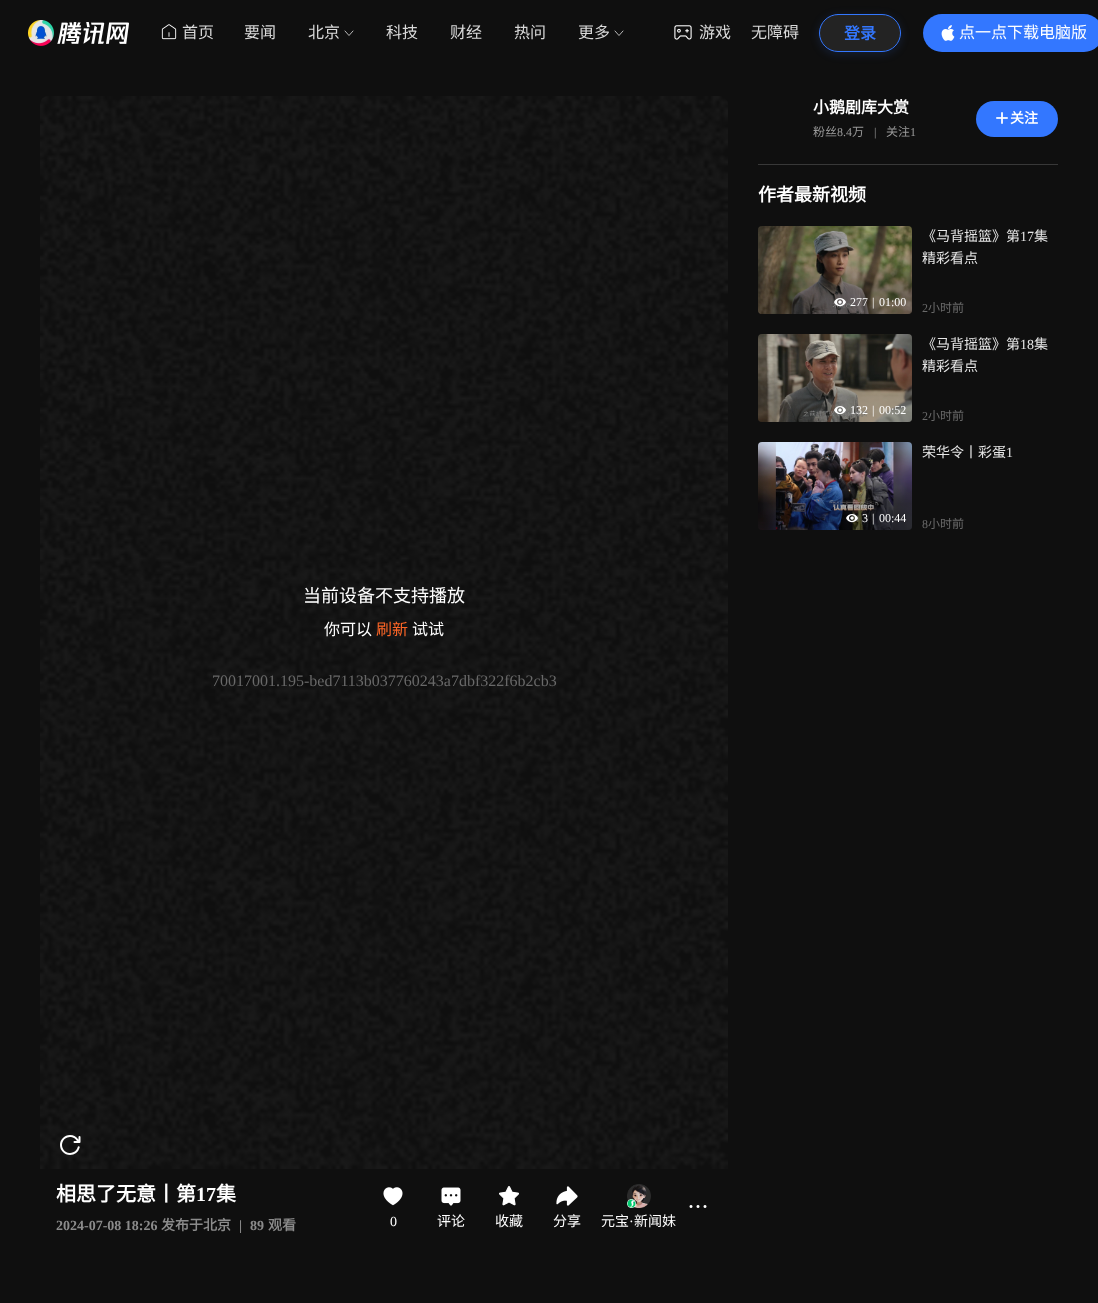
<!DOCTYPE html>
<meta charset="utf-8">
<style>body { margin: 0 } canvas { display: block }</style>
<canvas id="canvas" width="1098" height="1303"></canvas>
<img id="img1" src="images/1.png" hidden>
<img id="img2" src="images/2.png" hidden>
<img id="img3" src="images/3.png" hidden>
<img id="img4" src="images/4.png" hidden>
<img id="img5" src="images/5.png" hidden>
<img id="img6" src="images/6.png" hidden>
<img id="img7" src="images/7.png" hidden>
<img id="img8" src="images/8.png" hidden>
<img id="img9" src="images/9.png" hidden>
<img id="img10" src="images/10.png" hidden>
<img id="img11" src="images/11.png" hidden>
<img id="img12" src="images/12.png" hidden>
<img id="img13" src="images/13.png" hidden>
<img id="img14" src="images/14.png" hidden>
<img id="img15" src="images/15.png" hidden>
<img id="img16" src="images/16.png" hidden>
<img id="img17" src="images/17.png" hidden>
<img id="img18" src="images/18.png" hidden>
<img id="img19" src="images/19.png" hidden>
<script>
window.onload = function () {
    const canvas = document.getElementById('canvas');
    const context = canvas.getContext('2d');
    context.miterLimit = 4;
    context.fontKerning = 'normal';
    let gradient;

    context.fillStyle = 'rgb(15, 15, 15)';
    context.fillRect(0, 0, 1098, 1303);
    context.drawImage(document.getElementById('img1'), 28, 20, 101, 26);
    context.drawImage(document.getElementById('img2'), 161, 24, 16, 16);
    context.beginPath();
    context.moveTo(353, 31);
    context.lineTo(349, 35.5);
    context.lineTo(345, 31);
    context.strokeStyle = 'rgb(255, 255, 255)';
    context.lineWidth = 0.7;
    context.lineCap = 'round';
    context.lineJoin = 'round';
    context.stroke();
    context.beginPath();
    context.moveTo(623, 31);
    context.lineTo(619, 35.5);
    context.lineTo(615, 31);
    context.stroke();
    context.drawImage(document.getElementById('img3'), 674, 25, 18, 15);
    context.save();
    context.beginPath();
    context.moveTo(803, 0);
    context.lineTo(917, 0);
    context.lineTo(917, 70);
    context.lineTo(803, 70);
    context.closePath();
    context.moveTo(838, 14);
    context.lineTo(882, 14);
    context.bezierCurveTo(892.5, 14, 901, 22.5, 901, 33);
    context.bezierCurveTo(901, 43.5, 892.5, 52, 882, 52);
    context.lineTo(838, 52);
    context.bezierCurveTo(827.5, 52, 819, 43.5, 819, 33);
    context.bezierCurveTo(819, 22.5, 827.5, 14, 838, 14);
    context.closePath();
    context.clip('evenodd');
    context.fillStyle = 'rgba(51, 119, 255, 0.16)';
    context.filter = 'blur(5px)';
    context.beginPath();
    context.roundRect(819, 16, 82, 38, 19);
    context.fill();
    context.filter = 'none';
    context.restore();
    context.fillStyle = 'rgba(217, 217, 217, 0.1)';
    context.beginPath();
    context.roundRect(819.5, 14.5, 81, 37, 18.5);
    context.fill();
    context.strokeStyle = 'rgb(51, 119, 255)';
    context.lineWidth = 1;
    context.lineJoin = 'miter';
    context.stroke();
    context.fillStyle = 'rgb(51, 119, 255)';
    context.beginPath();
    context.roundRect(923, 14, 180, 38, 19);
    context.fill();
    context.drawImage(document.getElementById('img4'), 941, 25, 14, 16);
    context.beginPath();
    context.roundRect(976, 101, 82, 36, 18);
    context.fill();
    context.drawImage(document.getElementById('img5'), 996, 112, 12, 12);
    context.fillStyle = 'rgb(56, 56, 56)';
    context.fillRect(758, 164, 300, 1);
    context.drawImage(document.getElementById('img6'), 758, 226, 154, 88);
    gradient = context.createLinearGradient(835, 314, 835, 226);
    gradient.addColorStop(0.3, 'rgba(0, 0, 0, 0.3)');
    gradient.addColorStop(0.6, 'rgba(0, 0, 0, 0)');
    context.fillStyle = gradient;
    context.beginPath();
    context.roundRect(758, 226, 154, 88, 4);
    context.fill();
    context.drawImage(document.getElementById('img7'), 834, 298, 12, 9);
    context.drawImage(document.getElementById('img8'), 758, 334, 154, 88);
    gradient = context.createLinearGradient(835, 422, 835, 334);
    gradient.addColorStop(0.3, 'rgba(0, 0, 0, 0.3)');
    gradient.addColorStop(0.6, 'rgba(0, 0, 0, 0)');
    context.fillStyle = gradient;
    context.beginPath();
    context.roundRect(758, 334, 154, 88, 4);
    context.fill();
    context.drawImage(document.getElementById('img9'), 834, 406, 12, 9);
    context.drawImage(document.getElementById('img10'), 758, 442, 154, 88);
    gradient = context.createLinearGradient(835, 530, 835, 442);
    gradient.addColorStop(0.3, 'rgba(0, 0, 0, 0.3)');
    gradient.addColorStop(0.6, 'rgba(0, 0, 0, 0)');
    context.fillStyle = gradient;
    context.beginPath();
    context.roundRect(758, 442, 154, 88, 4);
    context.fill();
    context.drawImage(document.getElementById('img11'), 846, 514, 12, 9);
    context.drawImage(document.getElementById('img12'), 40, 96, 688, 1073);
    context.drawImage(document.getElementById('img13'), 689, 1205, 18, 3);
    context.drawImage(document.getElementById('img14'), 383, 1187, 20, 19);
    context.drawImage(document.getElementById('img15'), 441, 1187, 20, 19);
    context.drawImage(document.getElementById('img16'), 499, 1186, 20, 20);
    context.drawImage(document.getElementById('img17'), 556, 1186, 22, 20);
    context.drawImage(document.getElementById('img18'), 627, 1184, 24, 24);
    context.drawImage(document.getElementById('img19'), 627, 1199, 9, 9);
    context.font = '16px Noto Sans CJK SC';
    context.fillStyle = 'rgb(217, 217, 217)';
    context.fillText('首页', 182, 38);
    context.fillText('要闻', 244, 38);
    context.fillText('北京', 308, 38);
    context.fillText('科技', 386, 38);
    context.fillText('财经', 450, 38);
    context.fillText('热问', 514, 38);
    context.fillText('更多', 578, 38);
    context.fillText('游戏', 699, 38);
    context.fillText('无障碍', 751, 38);
    context.font = 'bold 16px Noto Sans CJK SC';
    context.fillStyle = 'rgb(51, 119, 255)';
    context.fillText('登录', 844, 39);
    context.font = '16px Noto Sans CJK SC';
    context.fillStyle = 'rgb(255, 255, 255)';
    context.fillText('点一点下载电脑版', 959, 38);
    context.font = 'bold 16px Noto Sans CJK SC';
    context.fillText('小鹅剧库大赏', 813, 113);
    context.font = '12px Noto Sans CJK SC';
    context.fillStyle = 'rgb(153, 153, 153)';
    context.fillText('粉丝', 813, 136);
    context.font = '12px Liberation Serif';
    context.fillText('8.4', 837, 136);
    context.font = '12px Noto Sans CJK SC';
    context.fillText('万', 852, 136);
    context.font = '12px Liberation Serif';
    context.fillText('|', 874, 136);
    context.font = '12px Noto Sans CJK SC';
    context.fillText('关注', 886, 136);
    context.font = '12px Liberation Serif';
    context.fillText('1', 910, 136);
    context.font = 'bold 14px Noto Sans CJK SC';
    context.fillStyle = 'rgb(255, 255, 255)';
    context.fillText('关注', 1010, 123);
    context.font = 'bold 18px Noto Sans CJK SC';
    context.fillText('作者最新视频', 758, 201);
    context.font = '12px Liberation Serif';
    context.fillText('277', 850, 306);
    context.fillText('|', 872, 306);
    context.fillText('01:00', 879, 306);
    context.font = '14px Noto Sans CJK SC';
    context.fillStyle = 'rgb(230, 230, 230)';
    context.fillText('《马背摇篮》第', 922, 241);
    context.font = '14px Liberation Serif';
    context.fillText('17', 1020, 241);
    context.font = '14px Noto Sans CJK SC';
    context.fillText('集', 1034, 241);
    context.fillText('精彩看点', 922, 263);
    context.font = '12px Liberation Serif';
    context.fillStyle = 'rgb(105, 105, 105)';
    context.fillText('2', 922, 312);
    context.font = '12px Noto Sans CJK SC';
    context.fillText('小时前', 928, 312);
    context.font = '12px Liberation Serif';
    context.fillStyle = 'rgb(255, 255, 255)';
    context.fillText('132', 850, 414);
    context.fillText('|', 872, 414);
    context.fillText('00:52', 879, 414);
    context.font = '14px Noto Sans CJK SC';
    context.fillStyle = 'rgb(230, 230, 230)';
    context.fillText('《马背摇篮》第', 922, 349);
    context.font = '14px Liberation Serif';
    context.fillText('18', 1020, 349);
    context.font = '14px Noto Sans CJK SC';
    context.fillText('集', 1034, 349);
    context.fillText('精彩看点', 922, 371);
    context.font = '12px Liberation Serif';
    context.fillStyle = 'rgb(105, 105, 105)';
    context.fillText('2', 922, 420);
    context.font = '12px Noto Sans CJK SC';
    context.fillText('小时前', 928, 420);
    context.font = '12px Liberation Serif';
    context.fillStyle = 'rgb(255, 255, 255)';
    context.fillText('3', 862, 522);
    context.fillText('|', 872, 522);
    context.fillText('00:44', 879, 522);
    context.font = '14px Noto Sans CJK SC';
    context.fillStyle = 'rgb(230, 230, 230)';
    context.fillText('荣华令丨彩蛋', 922, 457);
    context.font = '14px Liberation Serif';
    context.fillText('1', 1006, 457);
    context.font = '12px Liberation Serif';
    context.fillStyle = 'rgb(105, 105, 105)';
    context.fillText('8', 922, 528);
    context.font = '12px Noto Sans CJK SC';
    context.fillText('小时前', 928, 528);
    context.font = '18px Noto Sans CJK SC';
    context.fillStyle = 'rgb(255, 255, 255)';
    context.fillText('当前设备不支持播放', 303, 602);
    context.font = '16px Noto Sans CJK SC';
    context.fillText('你可以', 324, 635);
    context.fillStyle = 'rgb(252, 101, 38)';
    context.fillText('刷新', 376, 635);
    context.fillStyle = 'rgb(255, 255, 255)';
    context.fillText('试试', 412, 635);
    context.font = '16px Liberation Serif';
    context.fillStyle = 'rgb(105, 105, 105)';
    context.fillText('70017001.195-bed7113b037760243a7dbf322f6b2cb3', 212, 686);
    context.font = 'bold 20px Noto Sans CJK SC';
    context.fillStyle = 'rgb(255, 255, 255)';
    context.fillText('相思了无意丨第', 56, 1201);
    context.font = 'bold 20px Liberation Serif';
    context.fillText('17', 196, 1201);
    context.font = 'bold 20px Noto Sans CJK SC';
    context.fillText('集', 216, 1201);
    context.font = 'bold 14px Liberation Serif';
    context.fillStyle = 'rgb(139, 139, 139)';
    context.fillText('2024-07-08 18:26', 56, 1230);
    context.font = 'bold 14px Noto Sans CJK SC';
    context.fillText('发布于北京', 161, 1230);
    context.font = 'bold 14px Liberation Serif';
    context.fillText('|', 239, 1230);
    context.fillText('89', 250, 1230);
    context.font = 'bold 14px Noto Sans CJK SC';
    context.fillText('观看', 268, 1230);
    context.font = '14px Liberation Serif';
    context.fillStyle = 'rgb(255, 255, 255)';
    context.fillText('0', 390, 1226);
    context.font = '14px Noto Sans CJK SC';
    context.fillText('评论', 437, 1226);
    context.fillText('收藏', 495, 1226);
    context.fillText('分享', 553, 1226);
    context.fillText('元宝', 601, 1226);
    context.font = '14px Liberation Serif';
    context.fillText('·', 629, 1226);
    context.font = '14px Noto Sans CJK SC';
    context.fillText('新闻妹', 634, 1226);
};
</script>
